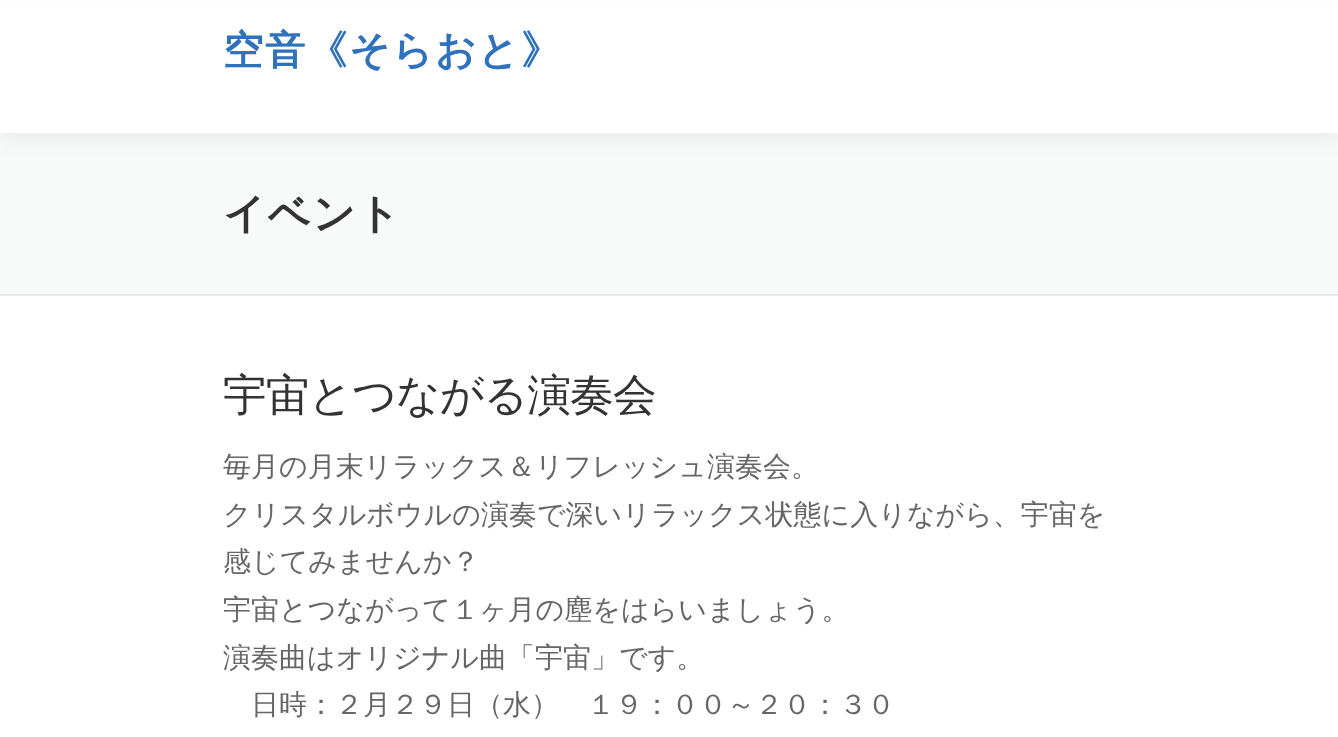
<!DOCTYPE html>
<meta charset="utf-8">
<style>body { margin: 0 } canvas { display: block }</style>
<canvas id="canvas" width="1338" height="737"></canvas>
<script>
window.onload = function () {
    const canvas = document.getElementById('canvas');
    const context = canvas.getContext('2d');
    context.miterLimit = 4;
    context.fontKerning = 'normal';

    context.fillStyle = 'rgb(255, 255, 255)';
    context.fillRect(0, 0, 1338, 737);
    context.fillStyle = 'rgb(248, 249, 249)';
    context.fillRect(0, 133, 1338, 161);
    context.fillStyle = 'rgba(50, 50, 50, 0.06)';
    context.filter = 'blur(9px)';
    context.beginPath();
    context.rect(0, 9, 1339, 133);
    context.fill();
    context.filter = 'none';
    context.fillStyle = 'rgb(255, 255, 255)';
    context.fillRect(0, 2, 1338, 131);
    context.fillStyle = 'rgb(233, 233, 233)';
    context.fillRect(0, 294, 1338, 2);
    context.letterSpacing = '1.75px';
    context.font = 'bold 40.25px WenQuanYi Zen Hei';
    context.fillStyle = 'rgb(47, 113, 188)';
    context.fillText('空音《そらおと》', 223, 64);
    context.font = 'bold 42px WenQuanYi Zen Hei';
    context.fillStyle = 'rgb(51, 51, 51)';
    context.fillText('イベント', 223, 228);
    context.letterSpacing = '-1px';
    context.font = '500 43.75px WenQuanYi Zen Hei';
    context.fillText('宇宙とつながる演奏会', 223, 410);
    context.letterSpacing = '0px';
    context.font = '500 28px WenQuanYi Zen Hei';
    context.fillStyle = 'rgb(102, 102, 102)';
    context.fillText('毎月の月末リラックス＆リフレッシュ演奏会。', 223, 476);
    context.fillText('クリスタルボウルの演奏で深いリラックス状態に入りながら、宇宙を', 223, 524);
    context.fillText('感じてみませんか？', 223, 571);
    context.fillText('宇宙とつながって１ヶ月の塵をはらいましょう。', 223, 619);
    context.fillText('演奏曲はオリジナル曲「宇宙」です。', 223, 667);
    context.fillText('日時：２月２９日（水）　１９：００～２０：３０', 251, 714);
};
</script>
